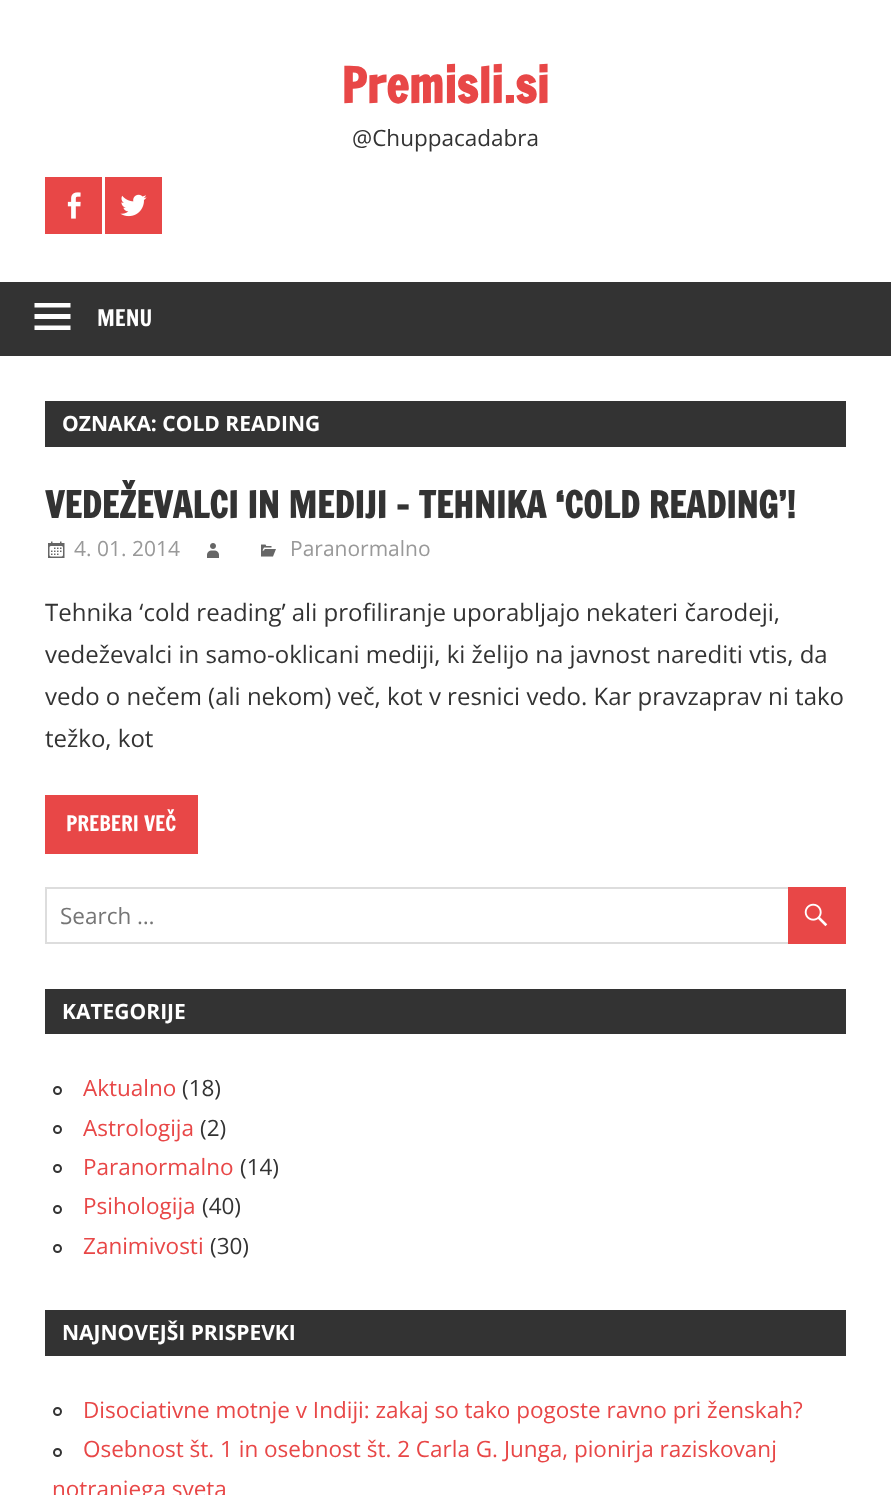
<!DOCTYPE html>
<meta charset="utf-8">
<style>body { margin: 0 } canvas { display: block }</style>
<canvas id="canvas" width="891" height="1495"></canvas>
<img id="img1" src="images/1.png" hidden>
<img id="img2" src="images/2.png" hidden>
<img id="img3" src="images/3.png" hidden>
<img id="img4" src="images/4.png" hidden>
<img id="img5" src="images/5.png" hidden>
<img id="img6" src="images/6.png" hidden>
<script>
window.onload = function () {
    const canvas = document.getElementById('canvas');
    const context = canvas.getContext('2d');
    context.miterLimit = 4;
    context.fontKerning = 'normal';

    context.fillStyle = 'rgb(255, 255, 255)';
    context.fillRect(0, 0, 891, 1495);
    context.fillStyle = 'rgb(232, 71, 71)';
    context.fillRect(45, 177, 57, 57);
    context.drawImage(document.getElementById('img1'), 67, 192, 14, 27);
    context.fillRect(105, 177, 57, 57);
    context.drawImage(document.getElementById('img2'), 120, 194, 27, 23);
    context.fillStyle = 'rgb(51, 51, 51)';
    context.fillRect(0, 282, 891, 74);
    context.fillStyle = 'rgb(255, 255, 255)';
    context.beginPath();
    context.moveTo(34.5, 330);
    context.lineTo(34.5, 325.5);
    context.lineTo(70.5, 325.5);
    context.lineTo(70.5, 330);
    context.closePath();
    context.moveTo(34.5, 303);
    context.lineTo(70.5, 303);
    context.lineTo(70.5, 307.5);
    context.lineTo(34.5, 307.5);
    context.closePath();
    context.moveTo(34.5, 319);
    context.lineTo(34.5, 314);
    context.lineTo(70.5, 314);
    context.lineTo(70.5, 319);
    context.closePath();
    context.fill();
    context.fillStyle = 'rgb(51, 51, 51)';
    context.fillRect(45, 401, 801, 46);
    context.drawImage(document.getElementById('img3'), 48, 541, 17, 17);
    context.drawImage(document.getElementById('img4'), 207, 543, 12, 15);
    context.drawImage(document.getElementById('img5'), 261, 544, 15, 13);
    context.fillStyle = 'rgb(232, 71, 71)';
    context.fillRect(45, 795, 153, 59);
    context.strokeStyle = 'rgb(221, 221, 221)';
    context.lineWidth = 2;
    context.strokeRect(46, 888, 799, 55);
    context.fillRect(788, 887, 58, 57);
    context.drawImage(document.getElementById('img6'), 804, 903, 24, 24);
    context.fillStyle = 'rgb(51, 51, 51)';
    context.fillRect(45, 989, 801, 45);
    context.beginPath();
    context.arc(57.5, 1090.5, 3.5, 0, 2 * Math.PI);
    context.strokeStyle = 'rgb(51, 51, 51)';
    context.stroke();
    context.beginPath();
    context.arc(57.5, 1129.5, 3.5, 0, 2 * Math.PI);
    context.stroke();
    context.beginPath();
    context.arc(57.5, 1168.5, 3.5, 0, 2 * Math.PI);
    context.stroke();
    context.beginPath();
    context.arc(57.5, 1209.5, 3.5, 0, 2 * Math.PI);
    context.stroke();
    context.beginPath();
    context.arc(57.5, 1248.5, 3.5, 0, 2 * Math.PI);
    context.stroke();
    context.fillRect(45, 1310, 801, 46);
    context.beginPath();
    context.arc(57.5, 1411.5, 3.5, 0, 2 * Math.PI);
    context.stroke();
    context.beginPath();
    context.arc(57.5, 1452.5, 3.5, 0, 2 * Math.PI);
    context.stroke();
    context.font = 'bold 48px Francois One';
    context.fillStyle = 'rgb(232, 71, 71)';
    context.fillText('Premisli.si', 341, 103);
    context.font = '22.5px Open Sans';
    context.fillStyle = 'rgb(51, 51, 51)';
    context.fillText('@Chuppacadabra', 352, 146);
    context.font = '22.5px Francois One';
    context.fillStyle = 'rgb(255, 255, 255)';
    context.fillText('MENU', 97, 326);
    context.font = 'bold 21px Open Sans';
    context.fillText('OZNAKA: COLD READING', 62, 431);
    context.font = 'bold 36px Francois One';
    context.fillStyle = 'rgb(51, 51, 51)';
    context.fillText('VEDEŽEVALCI IN MEDIJI – TEHNIKA ‘COLD READING’!', 45, 518);
    context.font = '21px Open Sans';
    context.fillStyle = 'rgb(153, 153, 153)';
    context.fillText('4. 01. 2014', 74, 556);
    context.fillText('Paranormalno', 290, 556);
    context.font = '24px Open Sans';
    context.fillStyle = 'rgb(51, 51, 51)';
    context.fillText('Tehnika ‘cold reading’ ali profiliranje uporabljajo nekateri čarodeji,', 45, 621);
    context.fillText('vedeževalci in samo-oklicani mediji, ki želijo na javnost narediti vtis, da', 45, 663);
    context.fillText('vedo o nečem (ali nekom) več, kot v resnici vedo. Kar pravzaprav ni tako', 45, 705);
    context.fillText('težko, kot', 45, 747);
    context.font = '21px Francois One';
    context.fillStyle = 'rgb(255, 255, 255)';
    context.fillText('PREBERI VEČ', 66, 831);
    context.font = '22.5px Open Sans';
    context.fillStyle = 'rgb(117, 117, 117)';
    context.fillText('Search …', 60, 924);
    context.font = 'bold 21px Open Sans';
    context.fillStyle = 'rgb(255, 255, 255)';
    context.fillText('KATEGORIJE', 62, 1019);
    context.font = '22.5px Open Sans';
    context.fillStyle = 'rgb(232, 71, 71)';
    context.fillText('Aktualno', 83, 1096);
    context.fillStyle = 'rgb(51, 51, 51)';
    context.fillText('(18)', 182, 1096);
    context.fillStyle = 'rgb(232, 71, 71)';
    context.fillText('Astrologija', 83, 1136);
    context.fillStyle = 'rgb(51, 51, 51)';
    context.fillText('(2)', 200, 1136);
    context.fillStyle = 'rgb(232, 71, 71)';
    context.fillText('Paranormalno', 83, 1175);
    context.fillStyle = 'rgb(51, 51, 51)';
    context.fillText('(14)', 240, 1175);
    context.fillStyle = 'rgb(232, 71, 71)';
    context.fillText('Psihologija', 83, 1214);
    context.fillStyle = 'rgb(51, 51, 51)';
    context.fillText('(40)', 202, 1214);
    context.fillStyle = 'rgb(232, 71, 71)';
    context.fillText('Zanimivosti', 83, 1254);
    context.fillStyle = 'rgb(51, 51, 51)';
    context.fillText('(30)', 210, 1254);
    context.font = 'bold 21px Open Sans';
    context.fillStyle = 'rgb(255, 255, 255)';
    context.fillText('NAJNOVEJŠI PRISPEVKI', 62, 1340);
    context.font = '22.5px Open Sans';
    context.fillStyle = 'rgb(232, 71, 71)';
    context.fillText('Disociativne motnje v Indiji: zakaj so tako pogoste ravno pri ženskah?', 83, 1418);
    context.fillText('Osebnost št. 1 in osebnost št. 2 Carla G. Junga, pionirja raziskovanj', 83, 1457);
    context.fillText('notranjega sveta', 52, 1497);
};
</script>
